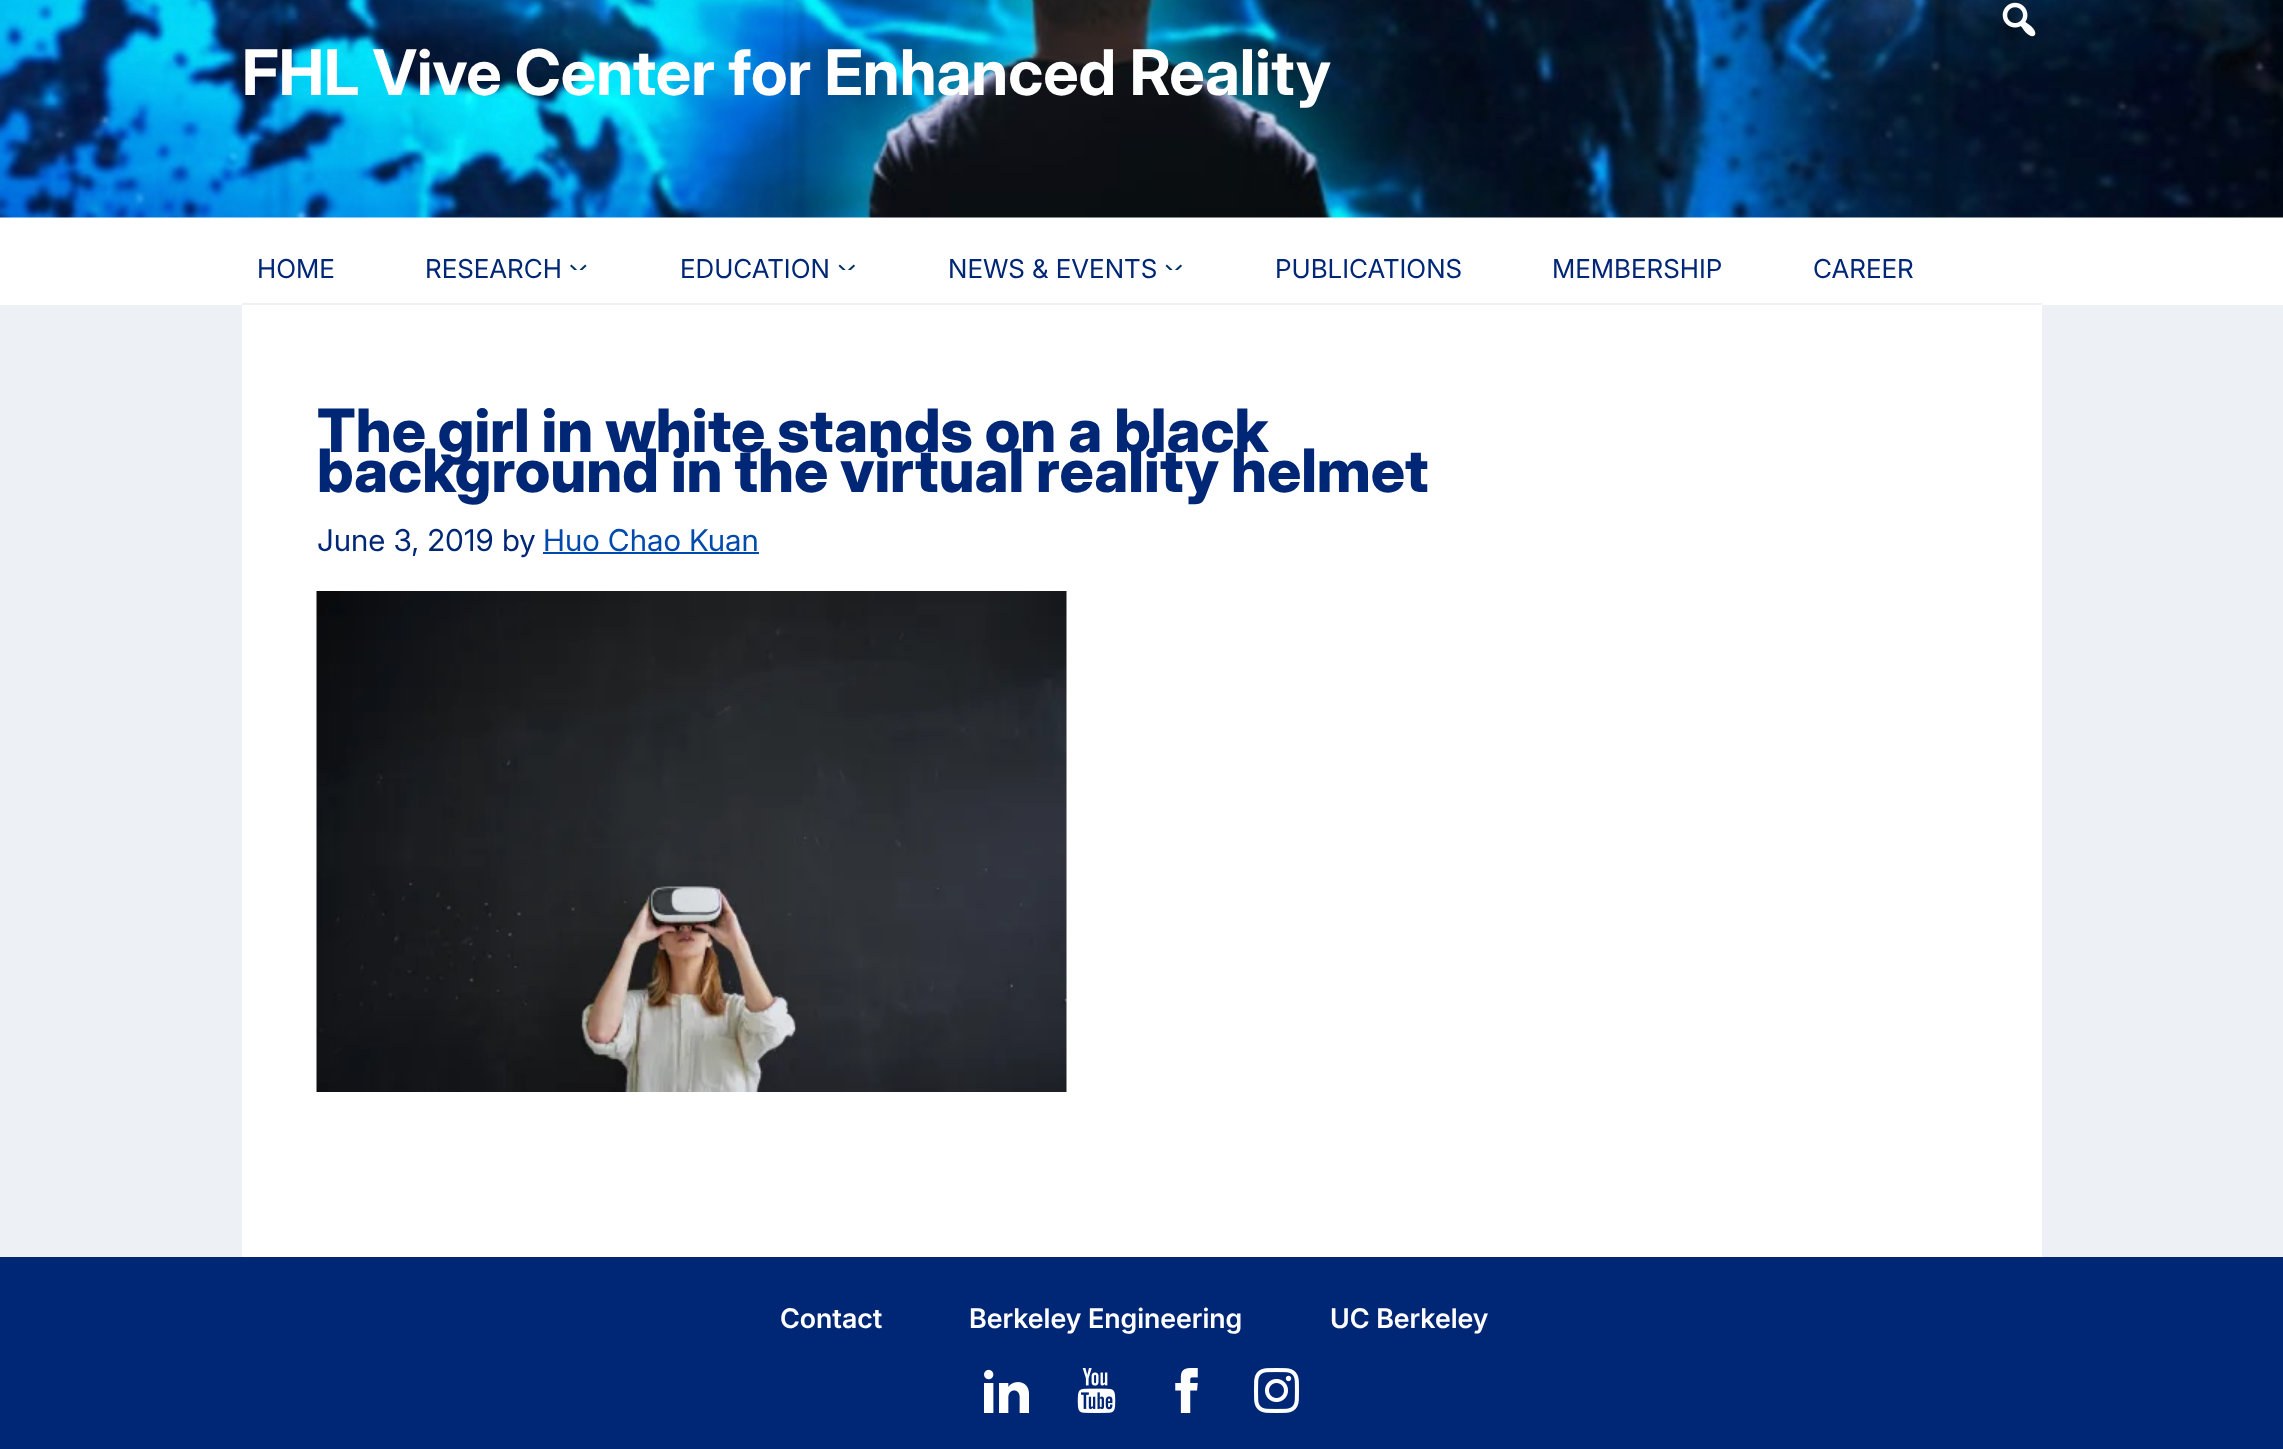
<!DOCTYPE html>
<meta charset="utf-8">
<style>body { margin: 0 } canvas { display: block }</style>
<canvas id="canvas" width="2283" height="1449"></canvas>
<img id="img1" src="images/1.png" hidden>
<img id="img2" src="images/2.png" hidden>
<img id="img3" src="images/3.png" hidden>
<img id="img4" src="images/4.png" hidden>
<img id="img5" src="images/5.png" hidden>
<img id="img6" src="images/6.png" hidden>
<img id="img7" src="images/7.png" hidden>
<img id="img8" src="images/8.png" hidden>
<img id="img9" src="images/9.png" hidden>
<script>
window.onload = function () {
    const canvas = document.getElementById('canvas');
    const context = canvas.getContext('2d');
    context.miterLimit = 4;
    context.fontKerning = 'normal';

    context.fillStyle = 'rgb(237, 240, 244)';
    context.fillRect(0, 0, 2283, 1449);
    context.fillStyle = 'rgb(255, 255, 255)';
    context.fillRect(0, 217, 2283, 88);
    context.drawImage(document.getElementById('img1'), 0, 0, 2283, 218);
    context.drawImage(document.getElementById('img2'), 2002, 2, 34, 35);
    context.fillStyle = 'rgb(237, 240, 244)';
    context.fillRect(242, 303, 1800, 2);
    context.drawImage(document.getElementById('img3'), 570, 264, 17, 6);
    context.drawImage(document.getElementById('img4'), 838, 264, 17, 6);
    context.drawImage(document.getElementById('img4'), 1165, 264, 17, 6);
    context.fillStyle = 'rgb(255, 255, 255)';
    context.fillRect(242, 305, 1800, 952);
    context.fillStyle = 'rgb(0, 74, 174)';
    context.fillRect(543, 552, 216, 2);
    context.drawImage(document.getElementById('img5'), 316, 591, 751, 501);
    context.fillStyle = 'rgb(0, 38, 118)';
    context.fillRect(0, 1257, 2283, 192);
    context.drawImage(document.getElementById('img6'), 984, 1369, 45, 44);
    context.drawImage(document.getElementById('img7'), 1077, 1368, 39, 45);
    context.drawImage(document.getElementById('img8'), 1175, 1368, 23, 45);
    context.drawImage(document.getElementById('img9'), 1254, 1368, 45, 45);
    context.font = 'bold 63px Inter';
    context.fillStyle = 'rgb(255, 255, 255)';
    context.fillText('FHL Vive Center for Enhanced Reality', 242, 95);
    context.font = '26px "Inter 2"';
    context.fillStyle = 'rgb(0, 38, 118)';
    context.fillText('HOME', 257, 278);
    context.fillText('RESEARCH', 425, 278);
    context.fillText('EDUCATION', 680, 278);
    context.fillText('NEWS & EVENTS', 948, 278);
    context.fillText('PUBLICATIONS', 1275, 278);
    context.fillText('MEMBERSHIP', 1552, 278);
    context.fillText('CAREER', 1813, 278);
    context.font = '800 59.9px Inter';
    context.fillText('The girl in white stands on a black', 317, 452);
    context.fillText('background in the virtual reality helmet', 317, 492);
    context.font = '30px Inter';
    context.fillText('June 3, 2019 by', 317, 551);
    context.fillStyle = 'rgb(0, 74, 174)';
    context.fillText('Huo Chao Kuan', 543, 551);
    context.font = '600 27px Inter';
    context.fillStyle = 'rgb(255, 255, 255)';
    context.fillText('Contact', 780, 1328);
    context.fillText('Berkeley Engineering', 969, 1328);
    context.fillText('UC Berkeley', 1330, 1328);
};
</script>
